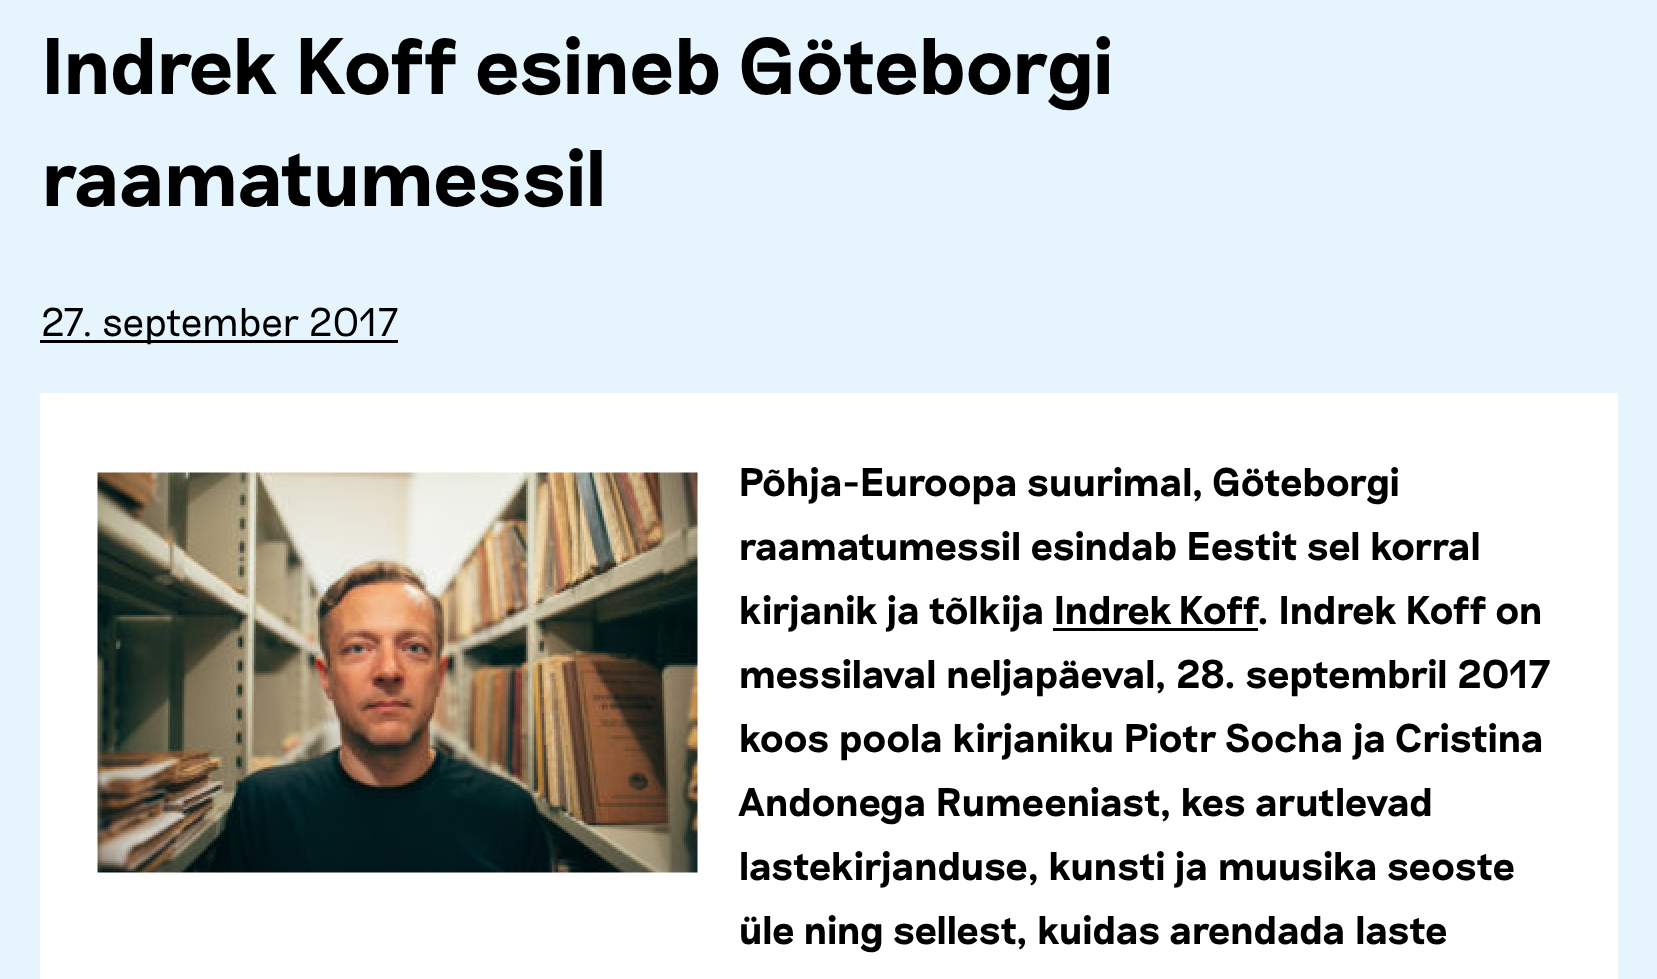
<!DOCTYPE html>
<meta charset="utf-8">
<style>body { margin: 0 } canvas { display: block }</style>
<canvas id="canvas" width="1657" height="979"></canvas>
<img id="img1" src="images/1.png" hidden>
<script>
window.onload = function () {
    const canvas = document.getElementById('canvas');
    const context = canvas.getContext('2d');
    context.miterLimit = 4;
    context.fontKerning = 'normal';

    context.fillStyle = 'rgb(230, 245, 253)';
    context.fillRect(0, 0, 1657, 979);
    context.fillStyle = 'rgb(0, 0, 0)';
    context.fillRect(40, 340, 358, 3);
    context.fillStyle = 'rgb(255, 255, 255)';
    context.fillRect(40, 393, 1578, 586);
    context.drawImage(document.getElementById('img1'), 97, 472, 601, 401);
    context.fillStyle = 'rgb(0, 0, 0)';
    context.fillRect(1053, 628, 205, 3);
    context.font = 'bold 80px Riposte';
    context.fillText('Indrek Koff esineb Göteborgi', 40, 94);
    context.fillText('raamatumessil', 40, 206);
    context.font = '300 40px Riposte';
    context.fillText('27. september 2017', 40, 336);
    context.font = 'bold 40px Riposte';
    context.fillText('Põhja-Euroopa suurimal, Göteborgi', 738, 496);
    context.fillText('raamatumessil esindab Eestit sel korral', 738, 560);
    context.fillText('kirjanik ja tõlkija', 738, 624);
    context.wordSpacing = '-2px';
    context.fillText('Indrek Koff', 1053, 624);
    context.wordSpacing = '0px';
    context.fillText('. Indrek Koff on', 1256, 624);
    context.fillText('messilaval neljapäeval, 28. septembril 2017', 738, 688);
    context.fillText('koos poola kirjaniku Piotr Socha ja Cristina', 738, 752);
    context.fillText('Andonega Rumeeniast, kes arutlevad', 738, 816);
    context.fillText('lastekirjanduse, kunsti ja muusika seoste', 738, 880);
    context.fillText('üle ning sellest, kuidas arendada laste', 738, 944);
};
</script>
